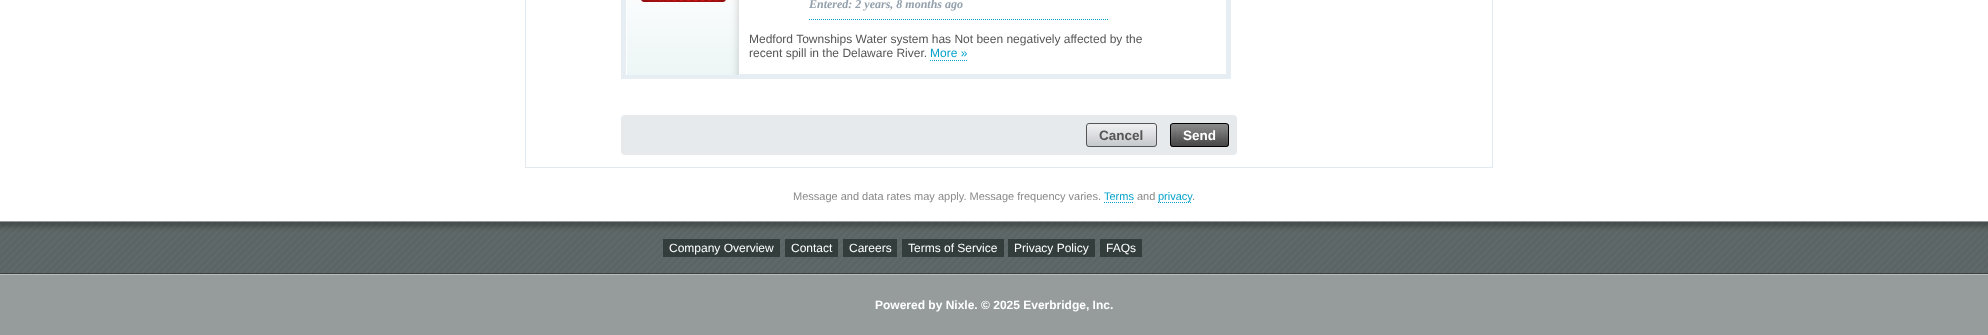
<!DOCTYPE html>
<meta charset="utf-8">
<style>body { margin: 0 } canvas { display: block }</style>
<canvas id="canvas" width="1988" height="335"></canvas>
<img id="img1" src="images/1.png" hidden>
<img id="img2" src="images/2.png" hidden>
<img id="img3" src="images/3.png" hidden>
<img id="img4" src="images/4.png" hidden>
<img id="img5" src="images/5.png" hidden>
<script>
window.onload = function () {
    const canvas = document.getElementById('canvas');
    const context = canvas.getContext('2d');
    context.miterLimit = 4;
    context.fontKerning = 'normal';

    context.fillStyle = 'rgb(150, 156, 156)';
    context.fillRect(0, 0, 1988, 335);
    context.fillStyle = 'rgb(255, 255, 255)';
    context.fillRect(0, 0, 1988, 221);
    context.fillStyle = 'rgb(224, 234, 240)';
    context.fillRect(1492, 0, 1, 168);
    context.fillRect(525, 167, 968, 1);
    context.fillRect(525, 0, 1, 168);
    context.strokeStyle = 'rgb(230, 238, 244)';
    context.lineWidth = 5;
    context.strokeRect(623.5, -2.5, 605, 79);
    context.drawImage(document.getElementById('img1'), 627, 0, 112, 75);
    context.fillStyle = 'rgb(255, 255, 255)';
    context.fillRect(739, 74, 1, 1);
    context.fillRect(626, 74, 1, 1);
    context.drawImage(document.getElementById('img2'), 641, 0, 85, 2);
    context.beginPath();
    context.moveTo(809, 19.5);
    context.lineTo(1109, 19.5);
    context.strokeStyle = 'rgb(7, 162, 202)';
    context.lineWidth = 1;
    context.setLineDash([1, 1]);
    context.stroke();
    context.beginPath();
    context.moveTo(930, 60.5);
    context.lineTo(968, 60.5);
    context.stroke();
    context.fillStyle = 'rgb(231, 234, 236)';
    context.beginPath();
    context.roundRect(621, 115, 616, 40, 4);
    context.fill();
    context.drawImage(document.getElementById('img3'), 1086, 124, 71, 23);
    context.beginPath();
    context.roundRect(1086.5, 123.5, 70, 23, 2.5);
    context.strokeStyle = 'rgb(85, 85, 85)';
    context.setLineDash([]);
    context.stroke();
    context.drawImage(document.getElementById('img4'), 1170, 124, 59, 23);
    context.beginPath();
    context.roundRect(1170.5, 123.5, 58, 23, 2.5);
    context.strokeStyle = 'rgb(0, 0, 0)';
    context.stroke();
    context.beginPath();
    context.moveTo(1104, 202.5);
    context.lineTo(1134, 202.5);
    context.strokeStyle = 'rgb(7, 162, 202)';
    context.setLineDash([1, 1]);
    context.stroke();
    context.beginPath();
    context.moveTo(1158, 202.5);
    context.lineTo(1192, 202.5);
    context.stroke();
    context.drawImage(document.getElementById('img5'), 0, 222, 1988, 52);
    context.fillStyle = 'rgb(150, 150, 156)';
    context.fillRect(0, 221, 1988, 1);
    context.fillStyle = 'rgb(184, 188, 188)';
    context.fillRect(0, 274, 1988, 1);
    context.fillStyle = 'rgb(50, 61, 60)';
    context.fillRect(663, 239, 117, 18);
    context.fillRect(785, 239, 53, 18);
    context.fillRect(843, 239, 54, 18);
    context.fillRect(902, 239, 102, 18);
    context.fillRect(1008, 239, 87, 18);
    context.fillRect(1100, 239, 42, 18);
    context.font = 'italic bold 12px Liberation Serif';
    context.fillStyle = 'rgb(147, 160, 172)';
    context.fillText('Entered: 2 years, 8 months ago', 809, 8);
    context.font = '12px Liberation Sans';
    context.fillStyle = 'rgb(85, 85, 85)';
    context.fillText('Medford Townships Water system has Not been negatively affected by the', 749, 43);
    context.fillText('recent spill in the Delaware River.', 749, 57);
    context.fillStyle = 'rgb(7, 162, 202)';
    context.fillText('More »', 930, 57);
    context.font = 'bold 13.5px Liberation Sans';
    context.fillStyle = 'rgb(85, 85, 85)';
    context.fillText('Cancel', 1099, 140);
    context.fillStyle = 'rgb(255, 255, 255)';
    context.fillText('Send', 1183, 140);
    context.font = '11px Liberation Sans';
    context.fillStyle = 'rgb(137, 137, 137)';
    context.fillText('Message and data rates may apply. Message frequency varies.', 793, 200);
    context.fillStyle = 'rgb(7, 162, 202)';
    context.fillText('Terms', 1104, 200);
    context.fillStyle = 'rgb(137, 137, 137)';
    context.fillText('and', 1137, 200);
    context.fillStyle = 'rgb(7, 162, 202)';
    context.fillText('privacy', 1158, 200);
    context.fillStyle = 'rgb(137, 137, 137)';
    context.fillText('.', 1192, 200);
    context.font = '12px Liberation Sans';
    context.fillStyle = 'rgb(255, 255, 255)';
    context.fillText('Company Overview', 669, 252);
    context.fillText('Contact', 791, 252);
    context.fillText('Careers', 849, 252);
    context.fillText('Terms of Service', 908, 252);
    context.fillText('Privacy Policy', 1014, 252);
    context.fillText('FAQs', 1106, 252);
    context.font = 'bold 12px Liberation Sans';
    context.fillText('Powered by Nixle. © 2025 Everbridge, Inc.', 875, 309);
};
</script>
